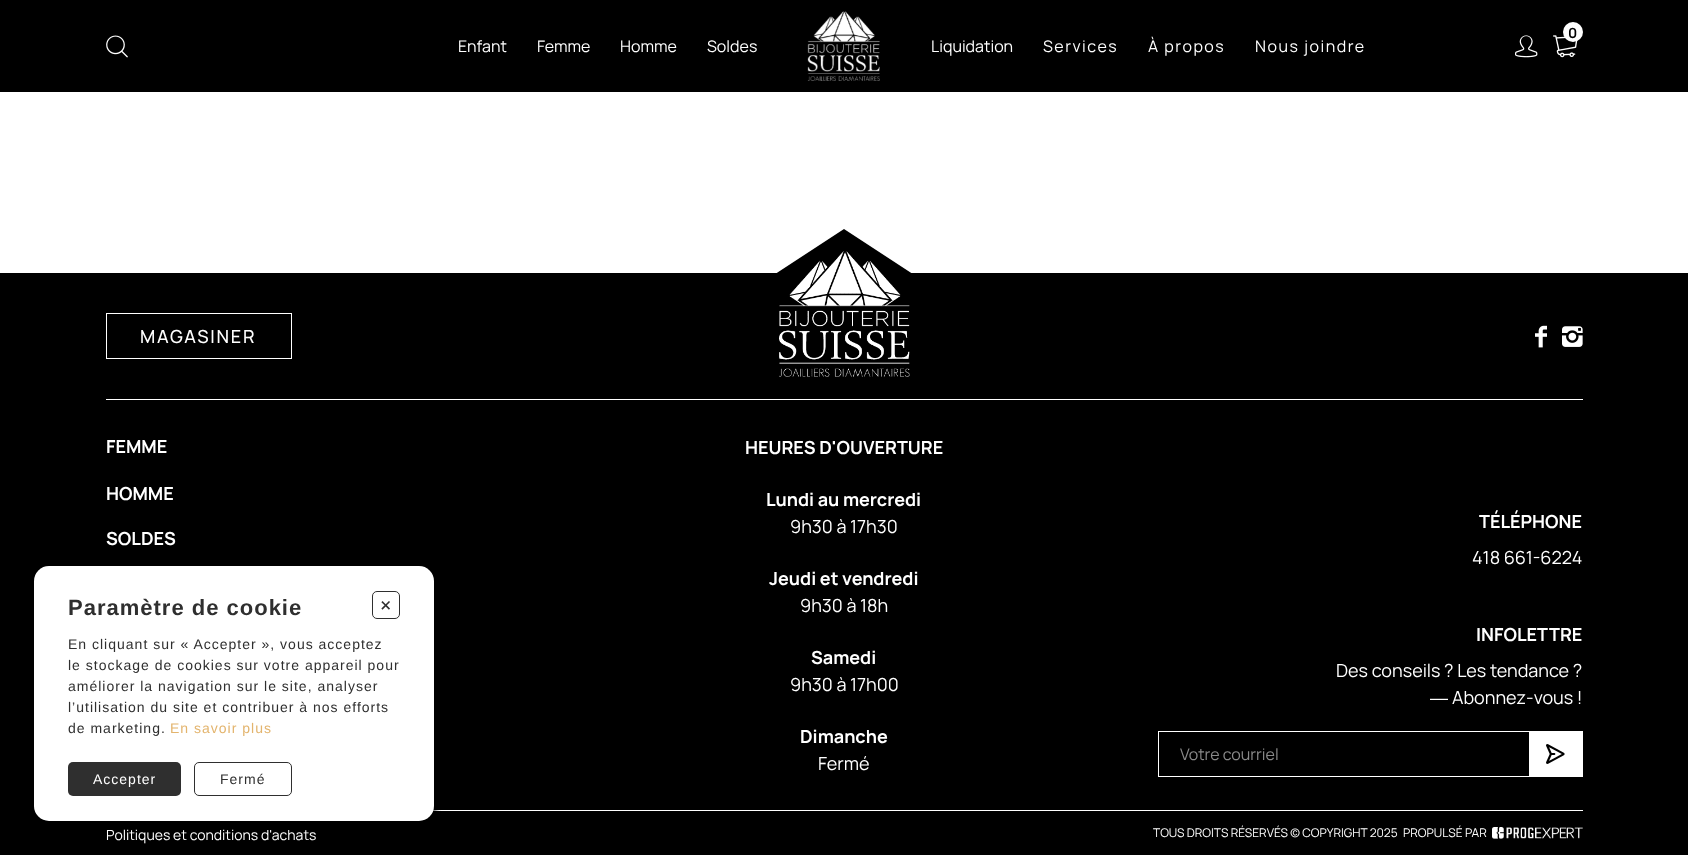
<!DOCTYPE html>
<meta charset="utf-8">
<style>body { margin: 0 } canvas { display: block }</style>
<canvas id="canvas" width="1688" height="855"></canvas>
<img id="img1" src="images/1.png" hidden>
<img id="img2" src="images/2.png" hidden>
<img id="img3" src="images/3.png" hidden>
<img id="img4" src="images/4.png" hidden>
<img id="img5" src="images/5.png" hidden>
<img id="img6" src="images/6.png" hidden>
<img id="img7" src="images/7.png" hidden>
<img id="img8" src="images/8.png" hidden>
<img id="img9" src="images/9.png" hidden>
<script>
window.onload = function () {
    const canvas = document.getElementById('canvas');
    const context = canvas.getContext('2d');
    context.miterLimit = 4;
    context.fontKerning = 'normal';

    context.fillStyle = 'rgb(255, 255, 255)';
    context.fillRect(0, 0, 1688, 855);
    context.fillStyle = 'rgb(0, 0, 0)';
    context.fillRect(0, 0, 1688, 92);
    context.drawImage(document.getElementById('img1'), 1553, 35, 25, 23);
    context.fillStyle = 'rgb(255, 255, 255)';
    context.beginPath();
    context.arc(1573, 32, 10, 0, 2 * Math.PI);
    context.fill();
    context.drawImage(document.getElementById('img2'), 1515, 35, 23, 23);
    context.drawImage(document.getElementById('img3'), 106, 35, 22, 23);
    context.drawImage(document.getElementById('img4'), 807, 11, 73, 70);
    context.fillStyle = 'rgb(0, 0, 0)';
    context.fillRect(0, 273, 1688, 582);
    context.strokeStyle = 'rgb(255, 255, 255)';
    context.strokeRect(106.5, 313.5, 185, 45);
    context.beginPath();
    context.moveTo(974, 314);
    context.lineTo(714, 314);
    context.lineTo(844, 229);
    context.closePath();
    context.fill();
    context.drawImage(document.getElementById('img5'), 779, 251, 131, 126);
    context.drawImage(document.getElementById('img6'), 1535, 325, 12, 23);
    context.drawImage(document.getElementById('img7'), 1562, 326, 21, 21);
    context.fillStyle = 'rgb(255, 255, 255)';
    context.fillRect(106, 399, 1477, 1);
    context.fillRect(433, 810, 1150, 1);
    context.strokeRect(1158.5, 731.5, 424, 45);
    context.fillRect(1529, 732, 53, 44);
    context.drawImage(document.getElementById('img8'), 1546, 744, 19, 20);
    context.drawImage(document.getElementById('img9'), 1492, 827, 91, 12);
    context.fillStyle = 'rgba(0, 0, 0, 0.16)';
    context.filter = 'blur(3px)';
    context.beginPath();
    context.roundRect(34, 569, 400, 255, 15);
    context.fill();
    context.filter = 'none';
    context.filter = 'blur(3px)';
    context.beginPath();
    context.roundRect(34, 569, 400, 255, 15);
    context.fill();
    context.filter = 'none';
    context.filter = 'blur(3px)';
    context.beginPath();
    context.roundRect(34, 569, 400, 255, 15);
    context.fill();
    context.filter = 'none';
    context.filter = 'blur(3px)';
    context.beginPath();
    context.roundRect(34, 569, 400, 255, 15);
    context.fill();
    context.filter = 'none';
    context.filter = 'blur(3px)';
    context.beginPath();
    context.roundRect(34, 569, 400, 255, 15);
    context.fill();
    context.filter = 'none';
    context.filter = 'blur(3px)';
    context.beginPath();
    context.roundRect(34, 569, 400, 255, 15);
    context.fill();
    context.filter = 'none';
    context.filter = 'blur(3px)';
    context.beginPath();
    context.roundRect(34, 569, 400, 255, 15);
    context.fill();
    context.filter = 'none';
    context.filter = 'blur(3px)';
    context.beginPath();
    context.roundRect(34, 569, 400, 255, 15);
    context.fill();
    context.filter = 'none';
    context.filter = 'blur(3px)';
    context.beginPath();
    context.roundRect(34, 569, 400, 255, 15);
    context.fill();
    context.filter = 'none';
    context.fillStyle = 'rgb(255, 255, 255)';
    context.beginPath();
    context.roundRect(34, 566, 400, 255, 15);
    context.fill();
    context.beginPath();
    context.roundRect(372.5, 591.5, 27, 27, 4.5);
    context.strokeStyle = 'rgb(47, 47, 47)';
    context.stroke();
    context.fillStyle = 'rgb(47, 47, 47)';
    context.beginPath();
    context.roundRect(68, 762, 113, 34, 5);
    context.fill();
    context.beginPath();
    context.roundRect(194.5, 762.5, 97, 33, 4.5);
    context.stroke();
    context.font = 'bold 14px Manrope';
    context.fillStyle = 'rgb(0, 0, 0)';
    context.fillText('0', 1568, 38);
    context.font = '16px Manrope';
    context.fillStyle = 'rgb(255, 255, 255)';
    context.fillText('Enfant', 458, 52);
    context.fillText('Femme', 537, 52);
    context.fillText('Homme', 620, 52);
    context.fillText('Soldes', 707, 52);
    context.fillText('Liquidation', 931, 52);
    context.letterSpacing = '1.5px';
    context.fillText('Services', 1043, 52);
    context.fillText('À propos', 1148, 52);
    context.fillText('Nous joindre', 1255, 52);
    context.letterSpacing = '1.75px';
    context.font = '500 18px Manrope';
    context.fillText('MAGASINER', 140, 343);
    context.letterSpacing = '0px';
    context.font = 'bold 18px Manrope';
    context.fillText('FEMME', 106, 453);
    context.fillText('HOMME', 106, 500);
    context.fillText('SOLDES', 106, 545);
    context.fillText('HEURES D\'OUVERTURE', 745, 454);
    context.fillText('Lundi au mercredi', 766, 506);
    context.font = '18px Manrope';
    context.fillText('9h30 à 17h30', 790, 533);
    context.font = 'bold 18px Manrope';
    context.fillText('Jeudi et vendredi', 769, 585);
    context.font = '18px Manrope';
    context.fillText('9h30 à 18h', 800, 612);
    context.font = 'bold 18px Manrope';
    context.fillText('Samedi', 811, 664);
    context.font = '18px Manrope';
    context.fillText('9h30 à 17h00', 790, 691);
    context.font = 'bold 18px Manrope';
    context.fillText('Dimanche', 800, 743);
    context.font = '18px Manrope';
    context.fillText('Fermé', 818, 770);
    context.font = 'bold 18px Manrope';
    context.fillText('TÉLÉPHONE', 1479, 528);
    context.font = '18px Manrope';
    context.fillText('418 661-6224', 1472, 564);
    context.font = 'bold 18px Manrope';
    context.fillText('INFOLETTRE', 1476, 641);
    context.font = '18px Manrope';
    context.fillText('Des conseils ? Les tendance ?', 1336, 677);
    context.font = '18px Liberation Sans';
    context.fillText('―', 1430, 704);
    context.font = '18px Manrope';
    context.fillText('Abonnez-vous !', 1452, 704);
    context.font = '16px Manrope';
    context.fillStyle = 'rgb(138, 138, 138)';
    context.fillText('Votre courriel', 1180, 760);
    context.font = '14px Manrope';
    context.fillStyle = 'rgb(255, 255, 255)';
    context.fillText('Politiques et conditions d\'achats', 106, 840);
    context.font = '12px Manrope';
    context.fillText('TOUS DROITS RÉSERVÉS © COPYRIGHT 2025', 1153, 837);
    context.fillText('PROPULSÉ PAR', 1403, 837);
    context.letterSpacing = '1px';
    context.font = 'bold 22px Liberation Sans';
    context.fillStyle = 'rgb(47, 47, 47)';
    context.fillText('Paramètre de cookie', 68, 615);
    context.letterSpacing = '0px';
    context.font = '22px Liberation Sans';
    context.save();
    context.translate(376, 606);
    context.rotate(45 * Math.PI / 180);
    context.fillText('+', 0, 0);
    context.restore();
    context.letterSpacing = '1px';
    context.font = '14px Liberation Sans';
    context.fillText('En cliquant sur « Accepter », vous acceptez', 68, 649);
    context.fillText('le stockage de cookies sur votre appareil pour', 68, 670);
    context.fillText('améliorer la navigation sur le site, analyser', 68, 691);
    context.fillText('l’utilisation du site et contribuer à nos efforts', 68, 712);
    context.fillText('de marketing.', 68, 733);
    context.fillStyle = 'rgb(227, 180, 109)';
    context.fillText('En savoir plus', 170, 733);
    context.fillStyle = 'rgb(255, 255, 255)';
    context.fillText('Accepter', 93, 784);
    context.fillStyle = 'rgb(47, 47, 47)';
    context.fillText('Fermé', 220, 784);
};
</script>
